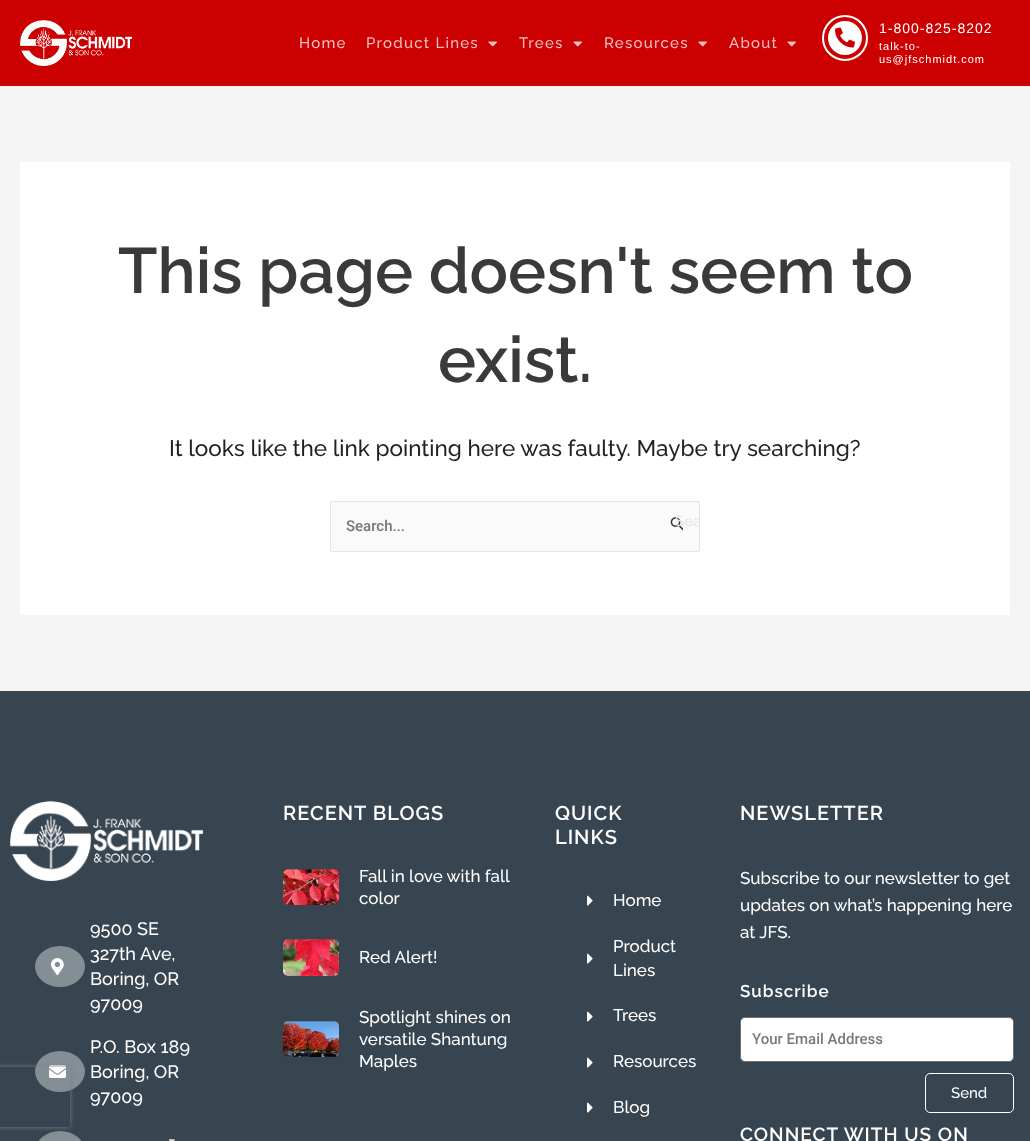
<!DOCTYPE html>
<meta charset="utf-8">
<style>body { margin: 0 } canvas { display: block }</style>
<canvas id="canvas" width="1030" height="1141"></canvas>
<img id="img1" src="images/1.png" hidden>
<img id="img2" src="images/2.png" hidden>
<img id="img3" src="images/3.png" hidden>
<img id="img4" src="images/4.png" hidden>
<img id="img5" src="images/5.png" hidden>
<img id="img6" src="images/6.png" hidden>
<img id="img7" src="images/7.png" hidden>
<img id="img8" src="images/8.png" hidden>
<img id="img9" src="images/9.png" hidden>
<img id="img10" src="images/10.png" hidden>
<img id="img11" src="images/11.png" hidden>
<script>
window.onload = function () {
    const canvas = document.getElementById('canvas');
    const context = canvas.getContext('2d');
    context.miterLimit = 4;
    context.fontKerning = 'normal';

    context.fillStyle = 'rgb(245, 245, 245)';
    context.fillRect(0, 0, 1030, 1141);
    context.fillStyle = 'rgb(204, 0, 1)';
    context.fillRect(0, 0, 1030, 86);
    context.drawImage(document.getElementById('img1'), 20, 20, 112, 46);
    context.drawImage(document.getElementById('img2'), 488, 41, 9, 6);
    context.drawImage(document.getElementById('img2'), 573, 41, 9, 6);
    context.drawImage(document.getElementById('img2'), 698, 41, 9, 6);
    context.drawImage(document.getElementById('img2'), 787, 41, 9, 6);
    context.fillStyle = 'rgb(255, 255, 255)';
    context.beginPath();
    context.arc(845, 38, 17, 0, 2 * Math.PI);
    context.fill();
    context.beginPath();
    context.arc(845, 38, 22, 0, 2 * Math.PI);
    context.strokeStyle = 'rgb(255, 255, 255)';
    context.lineWidth = 2;
    context.stroke();
    context.drawImage(document.getElementById('img3'), 835, 27, 20, 21);
    context.fillRect(20, 162, 990, 453);
    context.fillStyle = 'rgb(250, 250, 250)';
    context.beginPath();
    context.roundRect(330.5, 501.5, 369, 50, 1.5);
    context.fill();
    context.strokeStyle = 'rgb(229, 229, 229)';
    context.lineWidth = 1;
    context.stroke();
    context.drawImage(document.getElementById('img4'), 670, 517, 13, 14);
    context.fillStyle = 'rgb(55, 69, 80)';
    context.fillRect(0, 691, 1030, 450);
    context.drawImage(document.getElementById('img5'), 10, 801, 193, 80);
    context.fillStyle = 'rgb(131, 142, 149)';
    context.beginPath();
    context.ellipse(60, 966.5, 25, 20.5, 0, 0, 2 * Math.PI);
    context.fill();
    context.drawImage(document.getElementById('img6'), 51, 958, 13, 18);
    context.beginPath();
    context.ellipse(60, 1071.5, 25, 20.5, 0, 0, 2 * Math.PI);
    context.fill();
    context.drawImage(document.getElementById('img7'), 49, 1065, 17, 13);
    context.beginPath();
    context.ellipse(60, 1151.5, 25, 20.5, 0, 0, 2 * Math.PI);
    context.fill();
    context.drawImage(document.getElementById('img8'), 283, 869, 56, 36);
    context.drawImage(document.getElementById('img9'), 283, 939, 56, 37);
    context.drawImage(document.getElementById('img10'), 283, 1021, 56, 36);
    context.drawImage(document.getElementById('img11'), 587, 895, 6, 11);
    context.drawImage(document.getElementById('img11'), 587, 953, 6, 11);
    context.drawImage(document.getElementById('img11'), 587, 1011, 6, 11);
    context.drawImage(document.getElementById('img11'), 587, 1057, 6, 11);
    context.drawImage(document.getElementById('img11'), 587, 1102, 6, 11);
    context.fillStyle = 'rgb(255, 255, 255)';
    context.beginPath();
    context.roundRect(740.5, 1017.5, 273, 44, 4.5);
    context.fill();
    context.strokeStyle = 'rgb(105, 114, 125)';
    context.stroke();
    context.save();
    context.beginPath();
    context.moveTo(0, 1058);
    context.lineTo(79, 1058);
    context.lineTo(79, 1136);
    context.lineTo(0, 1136);
    context.closePath();
    context.moveTo(-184, 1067);
    context.lineTo(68, 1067);
    context.bezierCurveTo(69, 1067, 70, 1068, 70, 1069);
    context.lineTo(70, 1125);
    context.bezierCurveTo(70, 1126, 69, 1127, 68, 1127);
    context.lineTo(-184, 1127);
    context.bezierCurveTo(-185, 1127, -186, 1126, -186, 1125);
    context.lineTo(-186, 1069);
    context.bezierCurveTo(-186, 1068, -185, 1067, -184, 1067);
    context.closePath();
    context.clip('evenodd');
    context.fillStyle = 'rgb(128, 128, 128)';
    context.filter = 'blur(2.5px)';
    context.beginPath();
    context.roundRect(-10, 1067, 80, 60, 2);
    context.fill();
    context.filter = 'none';
    context.restore();
    context.beginPath();
    context.roundRect(925.5, 1073.5, 88, 39, 4.5);
    context.strokeStyle = 'rgb(255, 255, 255)';
    context.stroke();
    context.letterSpacing = '1.25px';
    context.font = '500 15px Raleway';
    context.fillStyle = 'rgb(242, 191, 192)';
    context.fillText('Home', 299, 48);
    context.fillText('Product Lines', 366, 48);
    context.fillText('Trees', 519, 48);
    context.fillText('Resources', 604, 48);
    context.fillText('About', 729, 48);
    context.letterSpacing = '1px';
    context.font = '14px Liberation Sans';
    context.fillStyle = 'rgb(255, 255, 255)';
    context.fillText('1-800-825-8202', 879, 33);
    context.font = '11px Liberation Sans';
    context.fillText('talk-to-', 879, 50);
    context.fillText('us@jfschmidt.com', 879, 63);
    context.letterSpacing = '0px';
    context.font = '600 64px Raleway';
    context.fillStyle = 'rgb(58, 58, 58)';
    context.fillText('This page doesn\'t seem to', 118, 293);
    context.fillText('exist.', 438, 382);
    context.font = '500 22.5px Raleway';
    context.fillStyle = 'rgb(30, 33, 38)';
    context.fillText('It looks like the link pointing here was faulty. Maybe try searching?', 169, 456);
    context.font = '500 15px Roboto';
    context.fillStyle = 'rgb(117, 117, 117)';
    context.fillText('Search...', 346, 531);
    context.save();
    context.beginPath();
    context.roundRect(655, 501, 45, 41, 2);
    context.clip();
    context.font = '500 15px Raleway';
    context.fillStyle = 'rgb(229, 229, 229)';
    context.fillText('Sea', 675, 526);
    context.restore();
    context.font = '500 18px Raleway';
    context.fillStyle = 'rgb(255, 255, 255)';
    context.fillText('9500 SE', 90, 935);
    context.fillText('327th Ave,', 90, 960);
    context.fillText('Boring, OR', 90, 985);
    context.fillText('97009', 90, 1010);
    context.fillText('P.O. Box 189', 90, 1053);
    context.fillText('Boring, OR', 90, 1078);
    context.fillText('97009', 90, 1103);
    context.fillText('-', 168, 1145);
    context.letterSpacing = '1px';
    context.font = '600 20px Raleway';
    context.fillText('RECENT BLOGS', 283, 820);
    context.letterSpacing = '0px';
    context.font = '500 17px Raleway';
    context.fillText('Fall in love with fall', 359, 882);
    context.fillText('color', 359, 904);
    context.fillText('Red Alert!', 359, 963);
    context.fillText('Spotlight shines on', 359, 1023);
    context.fillText('versatile Shantung', 359, 1045);
    context.fillText('Maples', 359, 1067);
    context.letterSpacing = '1px';
    context.font = '600 20px Raleway';
    context.fillText('QUICK', 555, 820);
    context.fillText('LINKS', 555, 844);
    context.letterSpacing = '0px';
    context.font = '500 17px Raleway';
    context.fillText('Home', 613, 906);
    context.fillText('Product', 613, 952);
    context.fillText('Lines', 613, 976);
    context.fillText('Trees', 613, 1021);
    context.fillText('Resources', 613, 1067);
    context.fillText('Blog', 613, 1113);
    context.letterSpacing = '1px';
    context.font = '600 20px Raleway';
    context.fillText('NEWSLETTER', 740, 820);
    context.letterSpacing = '0px';
    context.font = '500 17px Raleway';
    context.fillText('Subscribe to our newsletter to get', 740, 884);
    context.fillText('updates on what’s happening here', 740, 911);
    context.fillText('at JFS.', 740, 938);
    context.letterSpacing = '1px';
    context.font = '600 17px Raleway';
    context.fillText('Subscribe', 740, 997);
    context.letterSpacing = '0px';
    context.font = '500 15px Roboto';
    context.fillStyle = 'rgb(121, 122, 124)';
    context.fillText('Your Email Address', 752, 1044);
    context.font = '500 15px Raleway';
    context.fillStyle = 'rgb(255, 255, 255)';
    context.fillText('Send', 951, 1098);
    context.letterSpacing = '1px';
    context.font = '600 19px Raleway';
    context.fillText('CONNECT WITH US ON', 740, 1141);
};
</script>
